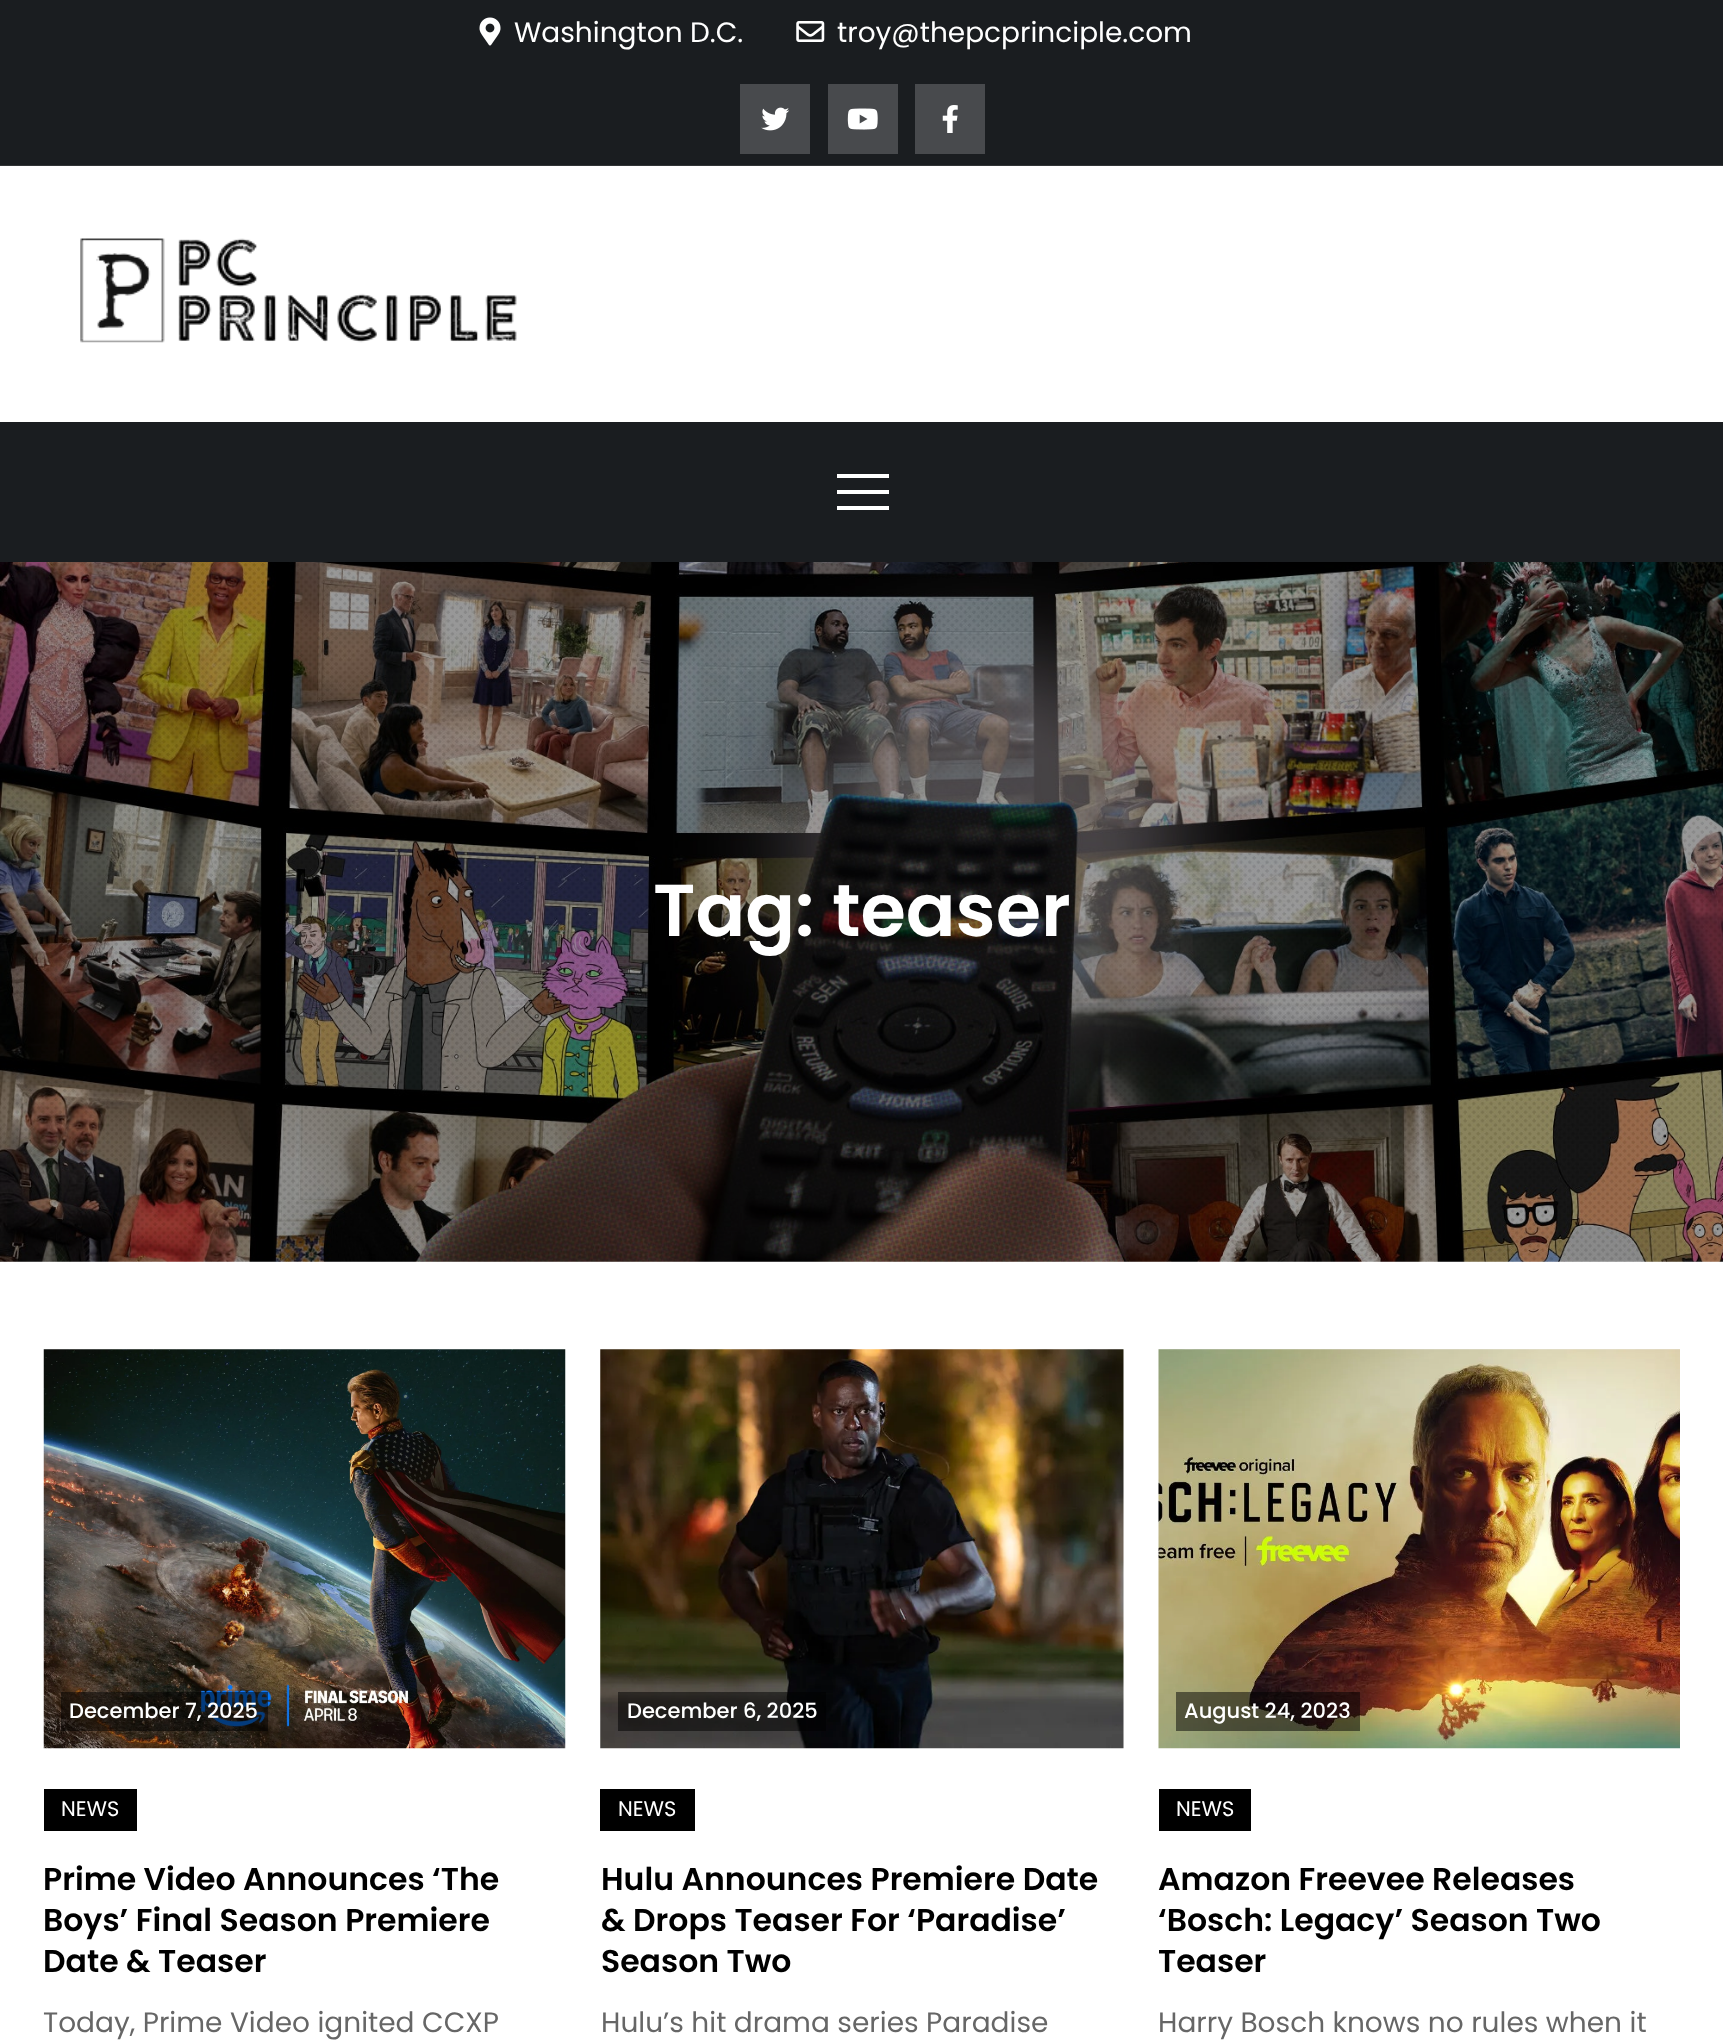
<!DOCTYPE html>
<meta charset="utf-8">
<style>body { margin: 0 } canvas { display: block }</style>
<canvas id="canvas" width="1723" height="2044"></canvas>
<img id="img1" src="images/1.png" hidden>
<img id="img2" src="images/2.png" hidden>
<img id="img3" src="images/3.png" hidden>
<img id="img4" src="images/4.png" hidden>
<img id="img5" src="images/5.png" hidden>
<img id="img6" src="images/6.png" hidden>
<img id="img7" src="images/7.png" hidden>
<img id="img8" src="images/8.png" hidden>
<img id="img9" src="images/9.png" hidden>
<img id="img10" src="images/10.png" hidden>
<script>
window.onload = function () {
    const canvas = document.getElementById('canvas');
    const context = canvas.getContext('2d');
    context.miterLimit = 4;
    context.fontKerning = 'normal';

    context.fillStyle = 'rgb(255, 255, 255)';
    context.fillRect(0, 0, 1723, 2044);
    context.fillStyle = 'rgb(26, 29, 32)';
    context.fillRect(0, 0, 1723, 165);
    context.fillStyle = 'rgb(49, 52, 54)';
    context.fillRect(0, 165, 1723, 1);
    context.drawImage(document.getElementById('img1'), 479, 17, 22, 29);
    context.drawImage(document.getElementById('img2'), 796, 21, 29, 21);
    context.fillStyle = 'rgb(72, 74, 77)';
    context.fillRect(740, 84, 70, 70);
    context.drawImage(document.getElementById('img3'), 761, 107, 29, 24);
    context.fillRect(828, 84, 70, 70);
    context.drawImage(document.getElementById('img4'), 847, 108, 31, 22);
    context.fillRect(915, 84, 70, 70);
    context.drawImage(document.getElementById('img5'), 942, 105, 16, 28);
    context.drawImage(document.getElementById('img6'), 80, 238, 437, 105);
    context.fillStyle = 'rgb(26, 29, 32)';
    context.fillRect(0, 422, 1723, 140);
    context.fillStyle = 'rgb(255, 255, 255)';
    context.fillRect(837, 474, 52, 4);
    context.fillRect(837, 490, 52, 4);
    context.fillRect(837, 506, 52, 4);
    context.drawImage(document.getElementById('img7'), 0, 562, 1723, 700);
    context.drawImage(document.getElementById('img8'), 43, 1349, 523, 400);
    context.fillStyle = 'rgba(0, 0, 0, 0.5)';
    context.fillRect(61, 1692, 207, 39);
    context.fillStyle = 'rgb(0, 0, 0)';
    context.fillRect(44, 1789, 93, 42);
    context.drawImage(document.getElementById('img9'), 600, 1349, 524, 400);
    context.fillStyle = 'rgba(0, 0, 0, 0.5)';
    context.fillRect(618, 1692, 208, 39);
    context.fillStyle = 'rgb(0, 0, 0)';
    context.fillRect(600, 1789, 95, 42);
    context.drawImage(document.getElementById('img10'), 1158, 1349, 522, 400);
    context.fillStyle = 'rgba(0, 0, 0, 0.5)';
    context.fillRect(1176, 1692, 184, 39);
    context.fillStyle = 'rgb(0, 0, 0)';
    context.fillRect(1159, 1789, 92, 42);
    context.font = '28px Poppins';
    context.fillStyle = 'rgb(255, 255, 255)';
    context.fillText('Washington D.C.', 514, 42);
    context.fillText('troy@thepcprinciple.com', 837, 42);
    context.font = '600 73.5px Poppins';
    context.fillText('Tag: teaser', 653, 936);
    context.font = '500 21px Poppins';
    context.fillText('December 7, 2025', 69, 1718);
    context.font = '21px Poppins';
    context.fillText('NEWS', 61, 1816);
    context.font = '600 31.5px Poppins';
    context.fillStyle = 'rgb(0, 0, 0)';
    context.fillText('Prime Video Announces ‘The', 43, 1890);
    context.fillText('Boys’ Final Season Premiere', 43, 1931);
    context.fillText('Date & Teaser', 43, 1972);
    context.font = '28px Poppins';
    context.fillStyle = 'rgb(102, 102, 102)';
    context.fillText('Today, Prime Video ignited CCXP', 43, 2032);
    context.font = '500 21px Poppins';
    context.fillStyle = 'rgb(255, 255, 255)';
    context.fillText('December 6, 2025', 627, 1718);
    context.font = '21px Poppins';
    context.fillText('NEWS', 618, 1816);
    context.font = '600 31.5px Poppins';
    context.fillStyle = 'rgb(0, 0, 0)';
    context.fillText('Hulu Announces Premiere Date', 601, 1890);
    context.fillText('& Drops Teaser For ‘Paradise’', 601, 1931);
    context.fillText('Season Two', 601, 1972);
    context.font = '28px Poppins';
    context.fillStyle = 'rgb(102, 102, 102)';
    context.fillText('Hulu’s hit drama series Paradise', 601, 2032);
    context.font = '500 21px Poppins';
    context.fillStyle = 'rgb(255, 255, 255)';
    context.fillText('August 24, 2023', 1184, 1718);
    context.font = '21px Poppins';
    context.fillText('NEWS', 1176, 1816);
    context.font = '600 31.5px Poppins';
    context.fillStyle = 'rgb(0, 0, 0)';
    context.fillText('Amazon Freevee Releases', 1158, 1890);
    context.fillText('‘Bosch: Legacy’ Season Two', 1158, 1931);
    context.fillText('Teaser', 1158, 1972);
    context.font = '28px Poppins';
    context.fillStyle = 'rgb(102, 102, 102)';
    context.fillText('Harry Bosch knows no rules when it', 1158, 2032);
};
</script>
